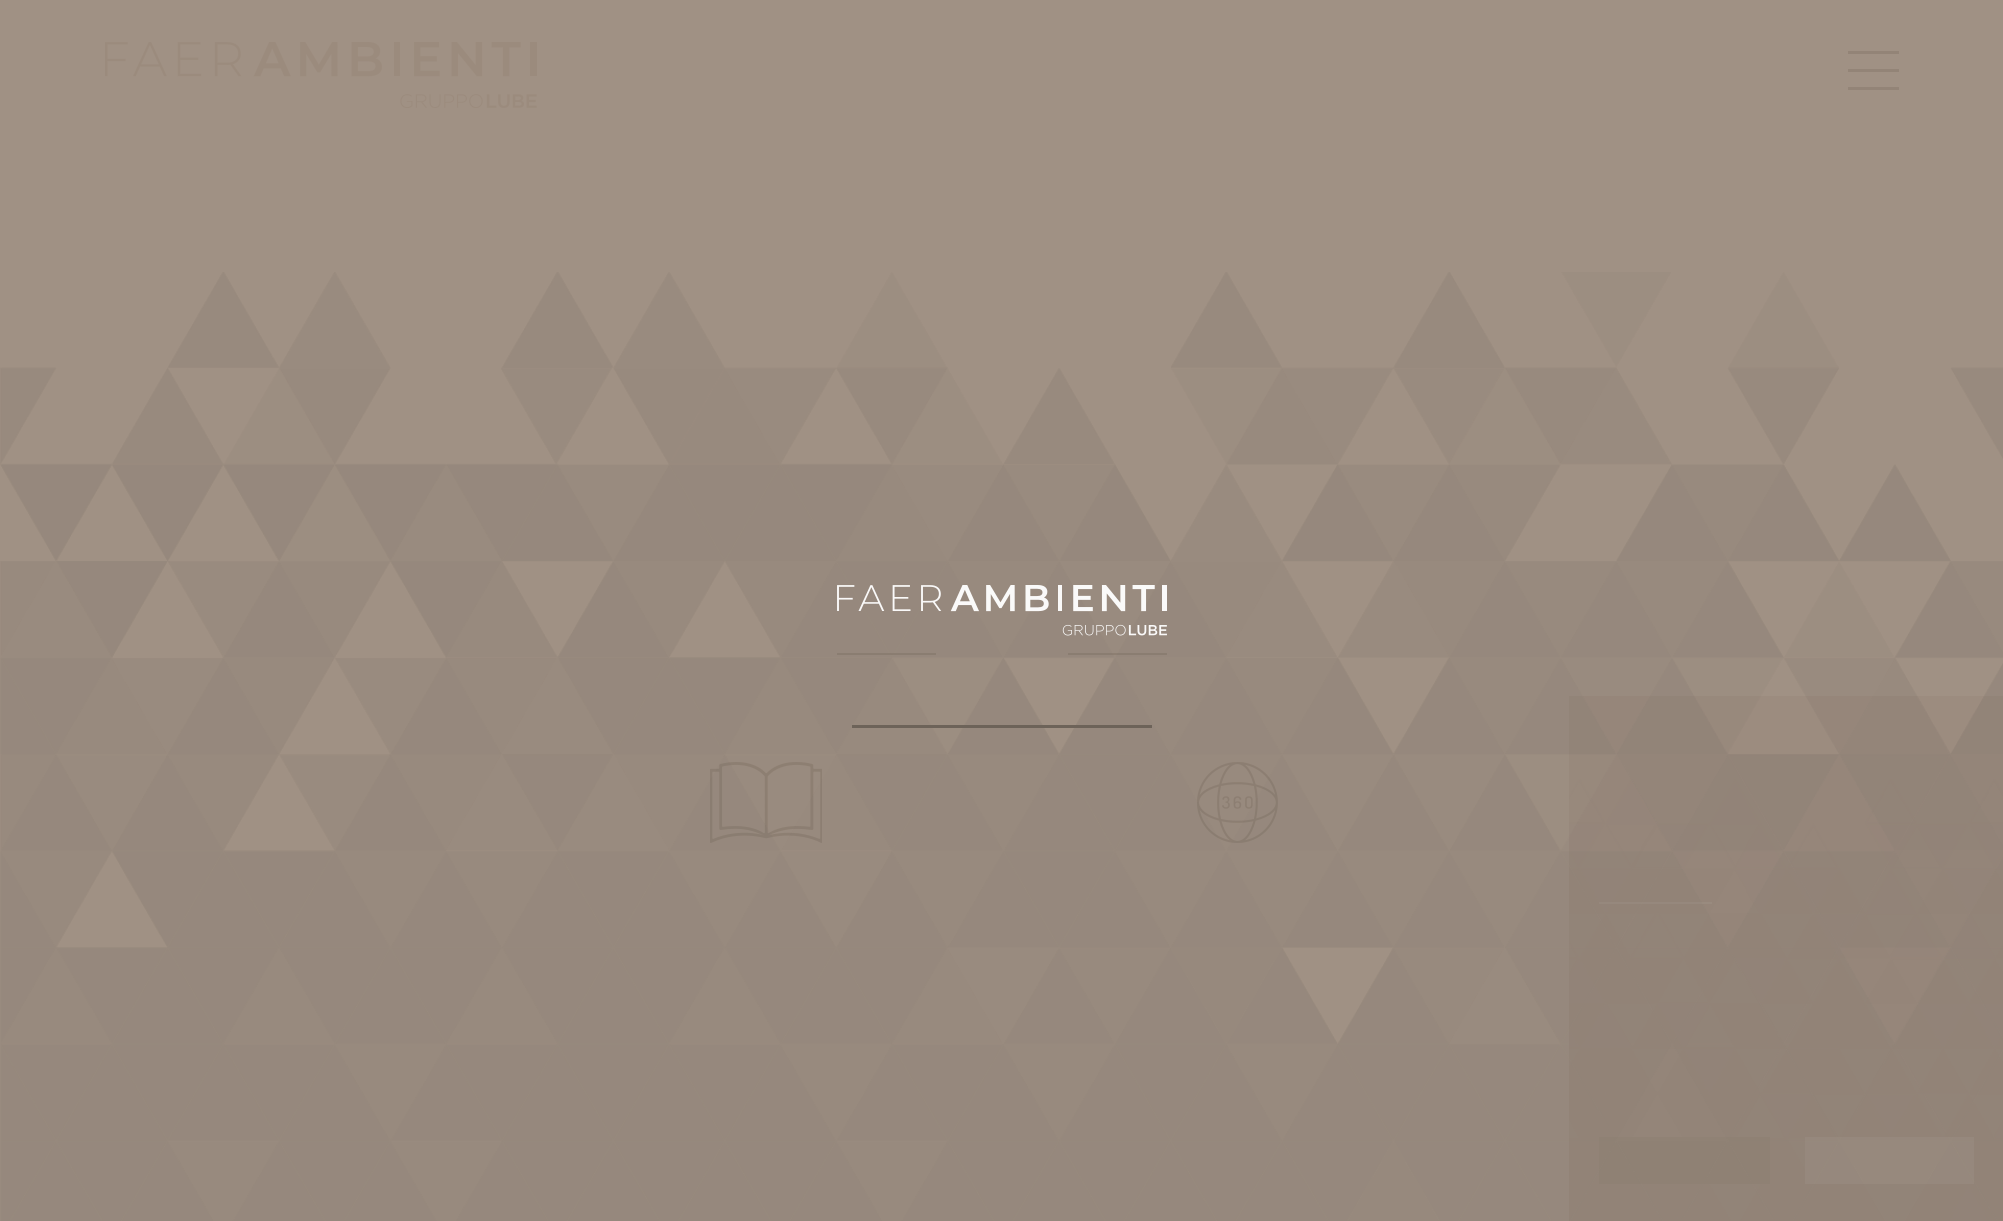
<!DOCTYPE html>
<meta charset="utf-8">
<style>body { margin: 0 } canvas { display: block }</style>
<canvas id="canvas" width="2003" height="1221"></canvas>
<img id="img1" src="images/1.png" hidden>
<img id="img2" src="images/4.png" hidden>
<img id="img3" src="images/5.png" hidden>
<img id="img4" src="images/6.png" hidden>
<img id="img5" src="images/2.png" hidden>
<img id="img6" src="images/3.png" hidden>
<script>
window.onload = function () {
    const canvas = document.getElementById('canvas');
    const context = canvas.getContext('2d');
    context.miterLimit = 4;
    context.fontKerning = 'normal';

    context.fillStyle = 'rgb(160, 145, 132)';
    context.fillRect(0, 0, 2003, 1221);
    context.drawImage(document.getElementById('img1'), 105, 42, 432, 66);
    context.fillStyle = 'rgb(147, 132, 119)';
    context.fillRect(1848, 51, 51, 3);
    context.fillRect(1848, 69, 51, 3);
    context.fillRect(1848, 87, 51, 3);
    context.fillRect(837, 653, 99, 2);
    context.fillRect(1068, 653, 99, 2);
    context.drawImage(document.getElementById('img2'), 710, 762, 112, 81);
    context.drawImage(document.getElementById('img3'), 1197, 762, 81, 81);
    context.fillStyle = 'rgb(156, 140, 127)';
    context.fillRect(1569, 696, 434, 525);
    context.drawImage(document.getElementById('img4'), 1569, 779, 434, 442);
    context.fillStyle = 'rgb(160, 145, 132)';
    context.fillRect(1599, 902, 113, 2);
    context.fillStyle = 'rgb(152, 137, 123)';
    context.fillRect(1599, 1137, 171, 47);
    context.fillStyle = 'rgb(160, 145, 132)';
    context.fillRect(1805, 1137, 169, 47);
    context.drawImage(document.getElementById('img5'), 0, 272, 2003, 949);
    context.drawImage(document.getElementById('img6'), 837, 585, 330, 51);
    context.fillStyle = 'rgb(109, 99, 89)';
    context.fillRect(852, 725, 300, 3);
};
</script>
